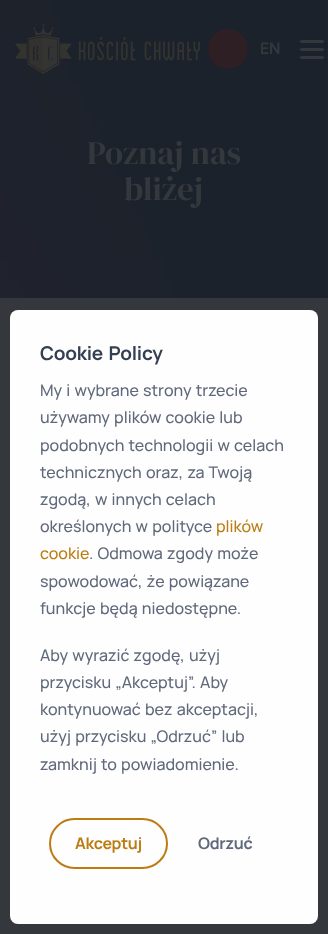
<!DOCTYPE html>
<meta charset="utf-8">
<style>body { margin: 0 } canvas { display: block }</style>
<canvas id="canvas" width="328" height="934"></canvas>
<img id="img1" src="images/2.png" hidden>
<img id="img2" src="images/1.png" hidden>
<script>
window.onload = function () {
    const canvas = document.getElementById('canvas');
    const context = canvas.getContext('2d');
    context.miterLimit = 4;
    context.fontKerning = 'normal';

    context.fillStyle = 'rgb(52, 56, 61)';
    context.fillRect(0, 0, 328, 934);
    context.drawImage(document.getElementById('img1'), 0, 0, 328, 298);
    context.drawImage(document.getElementById('img2'), 15, 24, 185, 50);
    context.fillStyle = 'rgb(45, 31, 36)';
    context.beginPath();
    context.arc(228, 49, 20, 0, 2 * Math.PI);
    context.fill();
    context.fillStyle = 'rgb(52, 56, 61)';
    context.beginPath();
    context.roundRect(300, 40, 24, 3, 1.5);
    context.fill();
    context.beginPath();
    context.roundRect(300, 48, 24, 3, 1.5);
    context.fill();
    context.beginPath();
    context.roundRect(300, 56, 24, 3, 1.5);
    context.fill();
    context.fillStyle = 'rgb(254, 254, 254)';
    context.beginPath();
    context.roundRect(10, 310, 308, 614, 8);
    context.fill();
    context.beginPath();
    context.roundRect(50, 819, 117, 49, 24.5);
    context.strokeStyle = 'rgb(189, 124, 19)';
    context.lineWidth = 2;
    context.stroke();
    context.letterSpacing = '-0.25px';
    context.font = 'bold 16px Manrope';
    context.fillStyle = 'rgb(52, 56, 61)';
    context.fillText('EN', 260, 54);
    context.letterSpacing = '0px';
    context.font = '33px DM Serif Display';
    context.fillText('Poznaj nas', 87, 164);
    context.fillText('bliżej', 124, 200);
    context.letterSpacing = '-0.25px';
    context.wordSpacing = '2px';
    context.font = 'bold 19px Manrope';
    context.fillStyle = 'rgb(52, 63, 82)';
    context.fillText('Cookie Policy', 40, 360);
    context.letterSpacing = '0px';
    context.wordSpacing = '1px';
    context.font = '500 16px Manrope';
    context.fillStyle = 'rgb(96, 105, 123)';
    context.fillText('My i wybrane strony trzecie', 40, 396);
    context.fillText('używamy plików cookie lub', 40, 423);
    context.fillText('podobnych technologii w celach', 40, 451);
    context.fillText('technicznych oraz, za Twoją', 40, 478);
    context.fillText('zgodą, w innych celach', 40, 505);
    context.fillText('określonych w polityce', 40, 532);
    context.wordSpacing = '0px';
    context.fillStyle = 'rgb(189, 124, 19)';
    context.fillText('plików', 216, 532);
    context.fillText('cookie', 40, 559);
    context.wordSpacing = '1px';
    context.fillStyle = 'rgb(96, 105, 123)';
    context.fillText('. Odmowa zgody może', 89, 559);
    context.fillText('spowodować, że powiązane', 40, 587);
    context.fillText('funkcje będą niedostępne.', 40, 614);
    context.fillText('Aby wyrazić zgodę, użyj', 40, 661);
    context.fillText('przycisku „Akceptuj”. Aby', 40, 688);
    context.fillText('kontynuować bez akceptacji,', 40, 715);
    context.fillText('użyj przycisku „Odrzuć” lub', 40, 742);
    context.fillText('zamknij to powiadomienie.', 40, 770);
    context.letterSpacing = '-0.25px';
    context.wordSpacing = '0px';
    context.font = 'bold 16px Manrope';
    context.fillStyle = 'rgb(189, 124, 19)';
    context.fillText('Akceptuj', 75, 849);
    context.fillStyle = 'rgb(96, 105, 123)';
    context.fillText('Odrzuć', 198, 849);
};
</script>
